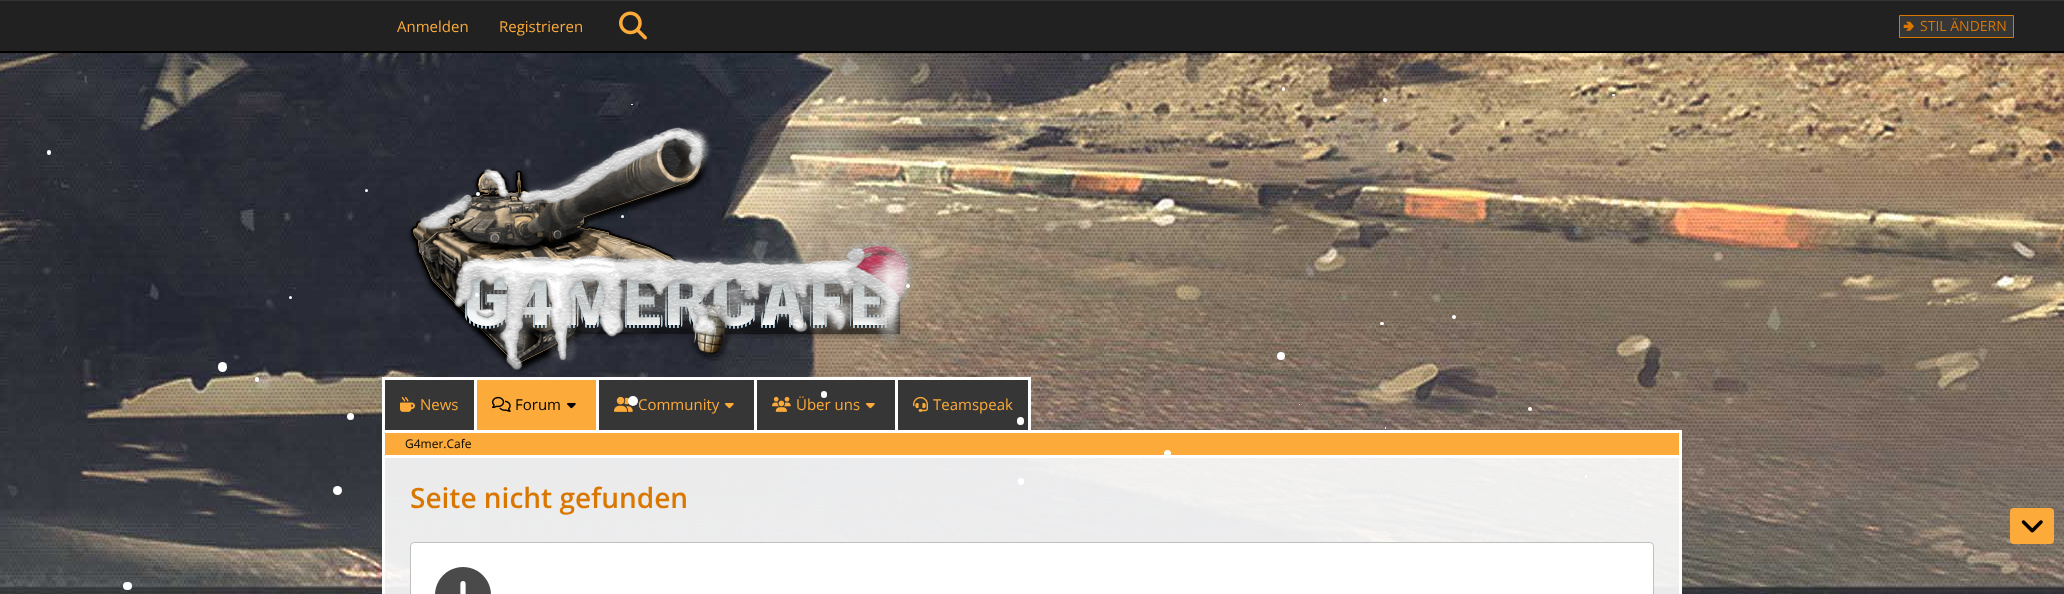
<!DOCTYPE html>
<meta charset="utf-8">
<style>body { margin: 0 } canvas { display: block }</style>
<canvas id="canvas" width="2064" height="594"></canvas>
<img id="img1" src="images/1.png" hidden>
<img id="img2" src="images/2.png" hidden>
<img id="img3" src="images/3.png" hidden>
<img id="img4" src="images/4.png" hidden>
<img id="img5" src="images/5.png" hidden>
<img id="img6" src="images/6.png" hidden>
<img id="img7" src="images/7.png" hidden>
<img id="img8" src="images/8.png" hidden>
<img id="img9" src="images/9.png" hidden>
<img id="img10" src="images/10.png" hidden>
<img id="img11" src="images/11.png" hidden>
<img id="img12" src="images/12.png" hidden>
<script>
window.onload = function () {
    const canvas = document.getElementById('canvas');
    const context = canvas.getContext('2d');
    context.miterLimit = 4;
    context.fontKerning = 'none';

    context.fillStyle = 'rgb(255, 255, 255)';
    context.fillRect(0, 0, 2064, 594);
    context.drawImage(document.getElementById('img1'), 0, 53, 2064, 541);
    context.fillStyle = 'rgb(33, 33, 33)';
    context.fillRect(0, 1, 2064, 50);
    context.fillStyle = 'rgb(52, 52, 52)';
    context.fillRect(0, 0, 2064, 1);
    context.fillStyle = 'rgb(0, 0, 0)';
    context.fillRect(0, 51, 2064, 2);
    context.drawImage(document.getElementById('img2'), 619, 11, 28, 29);
    context.fillStyle = 'rgb(54, 54, 54)';
    context.fillRect(385, 380, 89, 50);
    context.fillStyle = 'rgb(255, 255, 255)';
    context.fillRect(385, 377, 646, 3);
    context.fillRect(474, 377, 3, 53);
    context.drawImage(document.getElementById('img3'), 400, 396, 15, 16);
    context.fillRect(596, 377, 3, 53);
    context.fillStyle = 'rgb(252, 171, 58)';
    context.fillRect(477, 380, 119, 50);
    context.drawImage(document.getElementById('img4'), 492, 396, 19, 16);
    context.drawImage(document.getElementById('img5'), 567, 403, 9, 6);
    context.fillStyle = 'rgb(54, 54, 54)';
    context.fillRect(599, 380, 155, 50);
    context.fillStyle = 'rgb(255, 255, 255)';
    context.fillRect(754, 377, 3, 53);
    context.drawImage(document.getElementById('img6'), 614, 396, 19, 16);
    context.drawImage(document.getElementById('img7'), 725, 403, 9, 6);
    context.fillStyle = 'rgb(54, 54, 54)';
    context.fillRect(757, 380, 138, 50);
    context.fillStyle = 'rgb(255, 255, 255)';
    context.fillRect(895, 377, 3, 53);
    context.drawImage(document.getElementById('img8'), 772, 396, 19, 16);
    context.drawImage(document.getElementById('img7'), 866, 403, 9, 6);
    context.fillStyle = 'rgb(54, 54, 54)';
    context.fillRect(898, 380, 130, 50);
    context.fillStyle = 'rgb(255, 255, 255)';
    context.fillRect(1028, 377, 3, 53);
    context.drawImage(document.getElementById('img9'), 913, 396, 15, 16);
    context.drawImage(document.getElementById('img10'), 402, 126, 513, 249);
    context.fillStyle = 'rgb(54, 54, 54)';
    context.beginPath();
    context.rect(1899.5, 15.5, 114, 22);
    context.fill();
    context.strokeStyle = 'rgb(218, 119, 0)';
    context.stroke();
    context.fillStyle = 'rgb(252, 171, 58)';
    context.fillRect(385, 433, 1294, 22);
    context.fillStyle = 'rgb(255, 255, 255)';
    context.fillRect(382, 430, 1300, 3);
    context.fillRect(1679, 430, 3, 25);
    context.fillRect(382, 377, 3, 78);
    context.fillStyle = 'rgba(255, 255, 255, 0.9)';
    context.fillRect(385, 458, 1294, 136);
    context.fillStyle = 'rgb(255, 255, 255)';
    context.fillRect(382, 455, 1300, 3);
    context.fillRect(1679, 455, 3, 139);
    context.fillRect(382, 455, 3, 139);
    context.beginPath();
    context.roundRect(410, 542, 1244, 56, 4);
    context.fill();
    context.beginPath();
    context.roundRect(410.5, 542.5, 1243, 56, 3.5);
    context.strokeStyle = 'rgba(0, 0, 0, 0.25)';
    context.stroke();
    context.drawImage(document.getElementById('img11'), 435, 567, 56, 27);
    context.beginPath();
    context.roundRect(1282, 87, 3, 4, 1.5);
    context.fill();
    context.beginPath();
    context.roundRect(1612, 94, 3, 2, 1);
    context.fill();
    context.beginPath();
    context.arc(1385, 100, 2, 0, 2 * Math.PI);
    context.fill();
    context.beginPath();
    context.roundRect(631, 104, 2, 1, 0.5);
    context.fill();
    context.beginPath();
    context.roundRect(47, 150, 4, 5, 2);
    context.fill();
    context.beginPath();
    context.arc(366.5, 190.5, 1.5, 0, 2 * Math.PI);
    context.fill();
    context.beginPath();
    context.arc(478, 194, 2, 0, 2 * Math.PI);
    context.fill();
    context.beginPath();
    context.arc(622.5, 216.5, 1.5, 0, 2 * Math.PI);
    context.fill();
    context.beginPath();
    context.arc(908, 286, 2, 0, 2 * Math.PI);
    context.fill();
    context.beginPath();
    context.arc(477, 295, 2, 0, 2 * Math.PI);
    context.fill();
    context.beginPath();
    context.arc(290.5, 297.5, 1.5, 0, 2 * Math.PI);
    context.fill();
    context.beginPath();
    context.arc(1454, 317, 2, 0, 2 * Math.PI);
    context.fill();
    context.beginPath();
    context.roundRect(1380, 322, 4, 3, 1.5);
    context.fill();
    context.beginPath();
    context.arc(1281, 356, 4, 0, 2 * Math.PI);
    context.fill();
    context.beginPath();
    context.roundRect(218, 362, 9, 10, 4.5);
    context.fill();
    context.beginPath();
    context.roundRect(255, 377, 4, 5, 2);
    context.fill();
    context.beginPath();
    context.arc(633, 401, 5, 0, 2 * Math.PI);
    context.fill();
    context.beginPath();
    context.arc(1299.5, 404.5, 0.5, 0, 2 * Math.PI);
    context.fill();
    context.beginPath();
    context.arc(1530, 409, 2, 0, 2 * Math.PI);
    context.fill();
    context.beginPath();
    context.arc(350.5, 416.5, 3.5, 0, 2 * Math.PI);
    context.fill();
    context.beginPath();
    context.roundRect(1017, 417, 7, 8, 3.5);
    context.fill();
    context.beginPath();
    context.roundRect(1385, 427, 1, 2, 0.5);
    context.fill();
    context.beginPath();
    context.arc(1167.5, 453.5, 3.5, 0, 2 * Math.PI);
    context.fill();
    context.beginPath();
    context.roundRect(1585, 475, 2, 3, 1);
    context.fill();
    context.beginPath();
    context.roundRect(1018, 478, 6, 7, 3);
    context.fill();
    context.beginPath();
    context.arc(1279.5, 481.5, 0.5, 0, 2 * Math.PI);
    context.fill();
    context.beginPath();
    context.arc(337.5, 490.5, 4.5, 0, 2 * Math.PI);
    context.fill();
    context.beginPath();
    context.arc(1109.5, 498.5, 0.5, 0, 2 * Math.PI);
    context.fill();
    context.fillStyle = 'rgb(252, 171, 58)';
    context.beginPath();
    context.roundRect(2010, 508, 44, 36, 4);
    context.fill();
    context.drawImage(document.getElementById('img12'), 2021, 520, 22, 13);
    context.fillStyle = 'rgb(255, 255, 255)';
    context.beginPath();
    context.roundRect(123, 582, 9, 8, 4);
    context.fill();
    context.font = '15px Open Sans';
    context.fillStyle = 'rgb(252, 171, 58)';
    context.fillText('Anmelden', 397, 32);
    context.fillText('Registrieren', 499, 32);
    context.fillText('News', 420, 410);
    context.fillStyle = 'rgb(0, 0, 0)';
    context.fillText('Forum', 515, 410);
    context.fillStyle = 'rgb(252, 171, 58)';
    context.fillText('Community', 638, 410);
    context.fillText('Über uns', 796, 410);
    context.fillText('Teamspeak', 933, 410);
    context.font = 'bold 14px "Noto Sans Symbols 2"';
    context.fillStyle = 'rgb(218, 119, 0)';
    context.fillText('🢂', 1903, 31);
    context.font = '14px Open Sans';
    context.fillText('STIL ÄNDERN', 1920, 31);
    context.font = '12px Open Sans';
    context.fillStyle = 'rgb(0, 0, 0)';
    context.fillText('G4mer.Cafe', 405, 448);
    context.font = '600 28px Open Sans';
    context.fillStyle = 'rgb(218, 119, 0)';
    context.fillText('Seite nicht gefunden', 410, 508);
    context.fillStyle = 'rgb(255, 255, 255)';
    context.beginPath();
    context.roundRect(821, 391, 6, 7, 3);
    context.fill();
};
</script>
